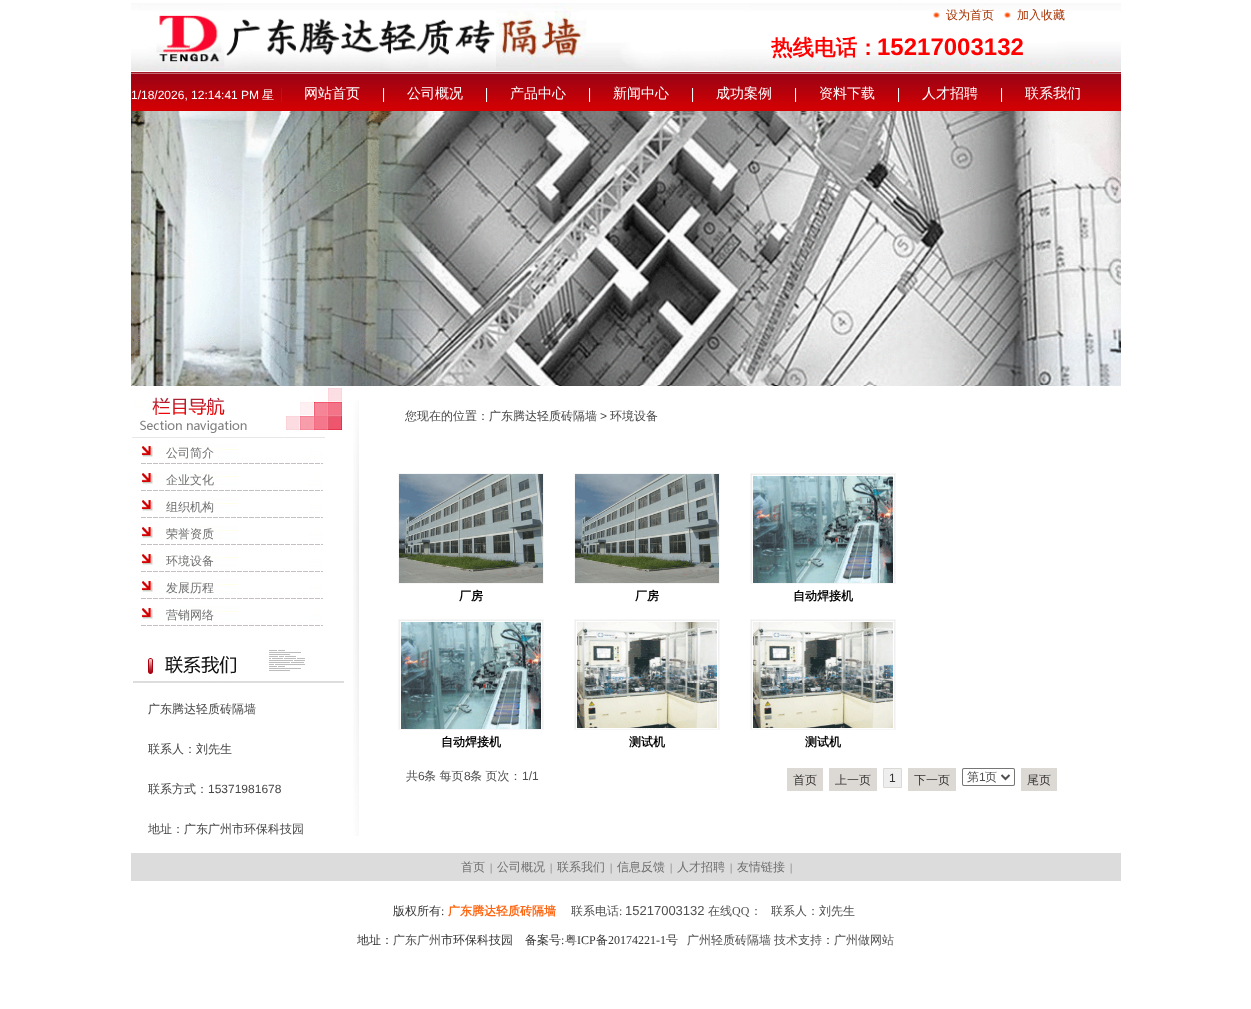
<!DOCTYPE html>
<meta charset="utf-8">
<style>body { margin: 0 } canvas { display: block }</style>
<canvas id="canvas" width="1251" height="1009"></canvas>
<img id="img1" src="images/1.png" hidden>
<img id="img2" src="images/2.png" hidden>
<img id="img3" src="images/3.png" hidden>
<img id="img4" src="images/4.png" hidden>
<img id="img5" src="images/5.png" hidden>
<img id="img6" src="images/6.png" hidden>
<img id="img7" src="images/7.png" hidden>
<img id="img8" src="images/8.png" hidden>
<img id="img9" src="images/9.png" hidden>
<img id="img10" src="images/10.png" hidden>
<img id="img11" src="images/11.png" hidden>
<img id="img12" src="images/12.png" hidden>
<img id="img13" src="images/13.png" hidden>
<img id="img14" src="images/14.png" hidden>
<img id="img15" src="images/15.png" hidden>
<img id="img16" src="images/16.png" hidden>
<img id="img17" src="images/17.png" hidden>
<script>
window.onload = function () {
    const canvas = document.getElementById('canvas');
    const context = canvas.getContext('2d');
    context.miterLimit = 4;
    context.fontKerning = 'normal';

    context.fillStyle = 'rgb(255, 255, 255)';
    context.fillRect(0, 0, 1251, 1009);
    context.drawImage(document.getElementById('img1'), 131, 3, 990, 68);
    context.drawImage(document.getElementById('img2'), 933, 12, 7, 6);
    context.drawImage(document.getElementById('img2'), 1004, 12, 7, 6);
    context.drawImage(document.getElementById('img3'), 131, 72, 990, 39);
    context.drawImage(document.getElementById('img4'), 281, 88, 1, 14);
    context.drawImage(document.getElementById('img5'), 383, 88, 2, 14);
    context.drawImage(document.getElementById('img5'), 486, 88, 2, 14);
    context.drawImage(document.getElementById('img5'), 589, 88, 2, 14);
    context.drawImage(document.getElementById('img5'), 692, 88, 2, 14);
    context.drawImage(document.getElementById('img5'), 795, 88, 2, 14);
    context.drawImage(document.getElementById('img5'), 898, 88, 2, 14);
    context.drawImage(document.getElementById('img5'), 1001, 88, 2, 14);
    context.drawImage(document.getElementById('img6'), 131, 111, 990, 275);
    context.drawImage(document.getElementById('img7'), 131, 113, 990, 272);
    context.drawImage(document.getElementById('img8'), 353, 400, 6, 436);
    context.drawImage(document.getElementById('img9'), 132, 397, 154, 41);
    context.drawImage(document.getElementById('img10'), 286, 387, 57, 51);
    context.drawImage(document.getElementById('img11'), 141, 444, 182, 20);
    context.drawImage(document.getElementById('img11'), 141, 471, 182, 20);
    context.drawImage(document.getElementById('img11'), 141, 498, 182, 20);
    context.drawImage(document.getElementById('img11'), 141, 525, 182, 20);
    context.drawImage(document.getElementById('img11'), 141, 552, 182, 20);
    context.drawImage(document.getElementById('img11'), 141, 579, 182, 20);
    context.drawImage(document.getElementById('img11'), 141, 606, 182, 20);
    context.drawImage(document.getElementById('img12'), 133, 650, 211, 33);
    context.fillStyle = 'rgb(247, 247, 247)';
    context.fillRect(398, 473, 146, 111);
    context.drawImage(document.getElementById('img13'), 399, 474, 144, 109);
    context.fillRect(574, 473, 146, 111);
    context.drawImage(document.getElementById('img14'), 575, 474, 144, 109);
    context.fillRect(750, 473, 146, 111);
    context.drawImage(document.getElementById('img15'), 751, 474, 144, 109);
    context.fillRect(398, 619, 146, 111);
    context.drawImage(document.getElementById('img15'), 399, 620, 144, 109);
    context.fillRect(574, 619, 146, 111);
    context.drawImage(document.getElementById('img16'), 575, 620, 144, 109);
    context.fillRect(750, 619, 146, 111);
    context.drawImage(document.getElementById('img17'), 751, 620, 144, 109);
    context.fillStyle = 'rgb(220, 217, 212)';
    context.fillRect(787, 768, 36, 23);
    context.fillRect(829, 768, 48, 23);
    context.fillStyle = 'rgb(238, 238, 238)';
    context.beginPath();
    context.rect(883.5, 768.5, 18, 19);
    context.fill();
    context.strokeStyle = 'rgb(220, 217, 212)';
    context.stroke();
    context.fillStyle = 'rgb(220, 217, 212)';
    context.fillRect(908, 768, 48, 23);
    context.fillRect(962, 768, 53, 18);
    context.fillStyle = 'rgb(255, 255, 255)';
    context.beginPath();
    context.roundRect(962.5, 768.5, 52, 17, 1.5);
    context.fill();
    context.strokeStyle = 'rgb(118, 118, 118)';
    context.stroke();
    context.beginPath();
    context.moveTo(1001.5, 775);
    context.lineTo(1005.5, 779);
    context.lineTo(1009.5, 775);
    context.strokeStyle = 'rgb(80, 80, 80)';
    context.lineWidth = 2;
    context.stroke();
    context.fillStyle = 'rgb(220, 217, 212)';
    context.fillRect(1021, 768, 36, 23);
    context.fillStyle = 'rgb(220, 220, 220)';
    context.fillRect(131, 853, 990, 28);
    context.font = '500 12px WenQuanYi Zen Hei';
    context.fillStyle = 'rgb(167, 49, 1)';
    context.fillText('设为首页', 946, 19);
    context.fillText('加入收藏', 1017, 19);
    context.font = 'bold 21.5px WenQuanYi Zen Hei';
    context.fillStyle = 'rgb(255, 0, 0)';
    context.fillText('热线电话：', 771, 55);
    context.font = 'bold 24px Liberation Sans';
    context.fillText('15217003132', 877, 55);
    context.font = '12px Liberation Sans';
    context.fillStyle = 'rgb(255, 255, 255)';
    context.fillText('1/18/2026, 12:14:41 PM', 131, 99);
    context.font = '500 12px WenQuanYi Zen Hei';
    context.fillText('星', 262, 99);
    context.font = '500 14px WenQuanYi Zen Hei';
    context.fillText('网站首页', 304, 98);
    context.fillText('公司概况', 407, 98);
    context.fillText('产品中心', 510, 98);
    context.fillText('新闻中心', 613, 98);
    context.fillText('成功案例', 716, 98);
    context.fillText('资料下载', 819, 98);
    context.fillText('人才招聘', 922, 98);
    context.fillText('联系我们', 1025, 98);
    context.font = '500 12px WenQuanYi Zen Hei';
    context.fillStyle = 'rgb(70, 70, 70)';
    context.fillText('您现在的位置：广东腾达轻质砖隔墙', 405, 420);
    context.font = '12px Liberation Sans';
    context.fillText('>', 600, 420);
    context.font = '500 12px WenQuanYi Zen Hei';
    context.fillText('环境设备', 610, 420);
    context.fillStyle = 'rgb(111, 111, 111)';
    context.fillText('公司简介', 166, 457);
    context.fillText('企业文化', 166, 484);
    context.fillText('组织机构', 166, 511);
    context.fillText('荣誉资质', 166, 538);
    context.fillText('环境设备', 166, 565);
    context.fillText('发展历程', 166, 592);
    context.fillText('营销网络', 166, 619);
    context.fillStyle = 'rgb(70, 70, 70)';
    context.fillText('广东腾达轻质砖隔墙', 148, 713);
    context.fillText('联系人：刘先生', 148, 753);
    context.fillText('联系方式：', 148, 793);
    context.font = '12px Liberation Sans';
    context.fillText('15371981678', 208, 793);
    context.font = '500 12px WenQuanYi Zen Hei';
    context.fillText('地址：广东广州市环保科技园', 148, 833);
    context.font = 'bold 12px WenQuanYi Zen Hei';
    context.fillStyle = 'rgb(0, 0, 0)';
    context.fillText('厂房', 459, 600);
    context.fillText('厂房', 635, 600);
    context.fillText('自动焊接机', 793, 600);
    context.fillText('自动焊接机', 441, 746);
    context.fillText('测试机', 629, 746);
    context.fillText('测试机', 805, 746);
    context.font = '500 12px WenQuanYi Zen Hei';
    context.fillStyle = 'rgb(80, 80, 80)';
    context.fillText('共', 406, 780);
    context.font = '12px Liberation Sans';
    context.fillText('6', 418, 780);
    context.font = '500 12px WenQuanYi Zen Hei';
    context.fillText('条 每页', 424, 780);
    context.font = '12px Liberation Sans';
    context.fillText('8', 464, 780);
    context.font = '500 12px WenQuanYi Zen Hei';
    context.fillText('条 页次：', 470, 780);
    context.font = '12px Liberation Sans';
    context.fillText('1/1', 522, 780);
    context.font = '500 12px WenQuanYi Zen Hei';
    context.fillStyle = 'rgb(51, 51, 51)';
    context.fillText('首页', 793, 784);
    context.fillText('上一页', 835, 784);
    context.font = '12px Liberation Sans';
    context.fillText('1', 889, 782);
    context.font = '500 12px WenQuanYi Zen Hei';
    context.fillText('下一页', 914, 784);
    context.fillStyle = 'rgb(80, 80, 80)';
    context.fillText('第', 967, 781);
    context.font = '12px Liberation Sans';
    context.fillText('1', 979, 781);
    context.font = '500 12px WenQuanYi Zen Hei';
    context.fillText('页', 985, 781);
    context.fillStyle = 'rgb(51, 51, 51)';
    context.fillText('尾页', 1027, 784);
    context.fillStyle = 'rgb(111, 111, 111)';
    context.fillText('首页', 461, 871);
    context.font = '11px Liberation Serif';
    context.fillText('|', 490, 871);
    context.font = '500 12px WenQuanYi Zen Hei';
    context.fillText('公司概况', 497, 871);
    context.font = '11px Liberation Serif';
    context.fillText('|', 550, 871);
    context.font = '500 12px WenQuanYi Zen Hei';
    context.fillText('联系我们', 557, 871);
    context.font = '11px Liberation Serif';
    context.fillText('|', 610, 871);
    context.font = '500 12px WenQuanYi Zen Hei';
    context.fillText('信息反馈', 617, 871);
    context.font = '11px Liberation Serif';
    context.fillText('|', 670, 871);
    context.font = '500 12px WenQuanYi Zen Hei';
    context.fillText('人才招聘', 677, 871);
    context.font = '11px Liberation Serif';
    context.fillText('|', 730, 871);
    context.font = '500 12px WenQuanYi Zen Hei';
    context.fillText('友情链接', 737, 871);
    context.font = '11px Liberation Serif';
    context.fillText('|', 790, 871);
    context.font = '500 12px WenQuanYi Zen Hei';
    context.fillStyle = 'rgb(51, 51, 51)';
    context.fillText('版权所有', 393, 915);
    context.font = '12px Liberation Serif';
    context.fillText(':', 441, 915);
    context.font = 'bold 12px WenQuanYi Zen Hei';
    context.fillStyle = 'rgb(255, 102, 17)';
    context.fillText('广东腾达轻质砖隔墙', 448, 915);
    context.font = '500 12px WenQuanYi Zen Hei';
    context.fillStyle = 'rgb(80, 80, 80)';
    context.fillText('联系电话', 571, 915);
    context.font = '12px Liberation Serif';
    context.fillText(':', 619, 915);
    context.font = '13px Liberation Sans';
    context.fillText('15217003132', 625, 915);
    context.font = '500 12px WenQuanYi Zen Hei';
    context.fillText('在线', 708, 915);
    context.font = '12px Liberation Serif';
    context.fillText('QQ', 732, 915);
    context.font = '500 12px WenQuanYi Zen Hei';
    context.fillText('：', 750, 915);
    context.fillText('联系人：刘先生', 771, 915);
    context.fillStyle = 'rgb(51, 51, 51)';
    context.fillText('地址：', 357, 944);
    context.fillStyle = 'rgb(80, 80, 80)';
    context.fillText('广东广州', 393, 944);
    context.fillStyle = 'rgb(51, 51, 51)';
    context.fillText('市环保科技园', 441, 944);
    context.fillText('备案号', 525, 944);
    context.font = '12px Liberation Serif';
    context.fillText(':', 561, 944);
    context.font = '500 12px WenQuanYi Zen Hei';
    context.fillStyle = 'rgb(80, 80, 80)';
    context.fillText('粤', 565, 944);
    context.font = '12px Liberation Serif';
    context.fillStyle = 'rgb(51, 51, 51)';
    context.fillText('ICP', 577, 944);
    context.font = '500 12px WenQuanYi Zen Hei';
    context.fillText('备', 596, 944);
    context.font = '12px Liberation Serif';
    context.fillText('20174221-1', 608, 944);
    context.font = '500 12px WenQuanYi Zen Hei';
    context.fillText('号', 666, 944);
    context.fillStyle = 'rgb(80, 80, 80)';
    context.fillText('广州轻质砖隔墙', 687, 944);
    context.fillText('技术支持', 774, 944);
    context.fillStyle = 'rgb(51, 51, 51)';
    context.fillText('：', 822, 944);
    context.fillStyle = 'rgb(80, 80, 80)';
    context.fillText('广州做网站', 834, 944);
};
</script>
